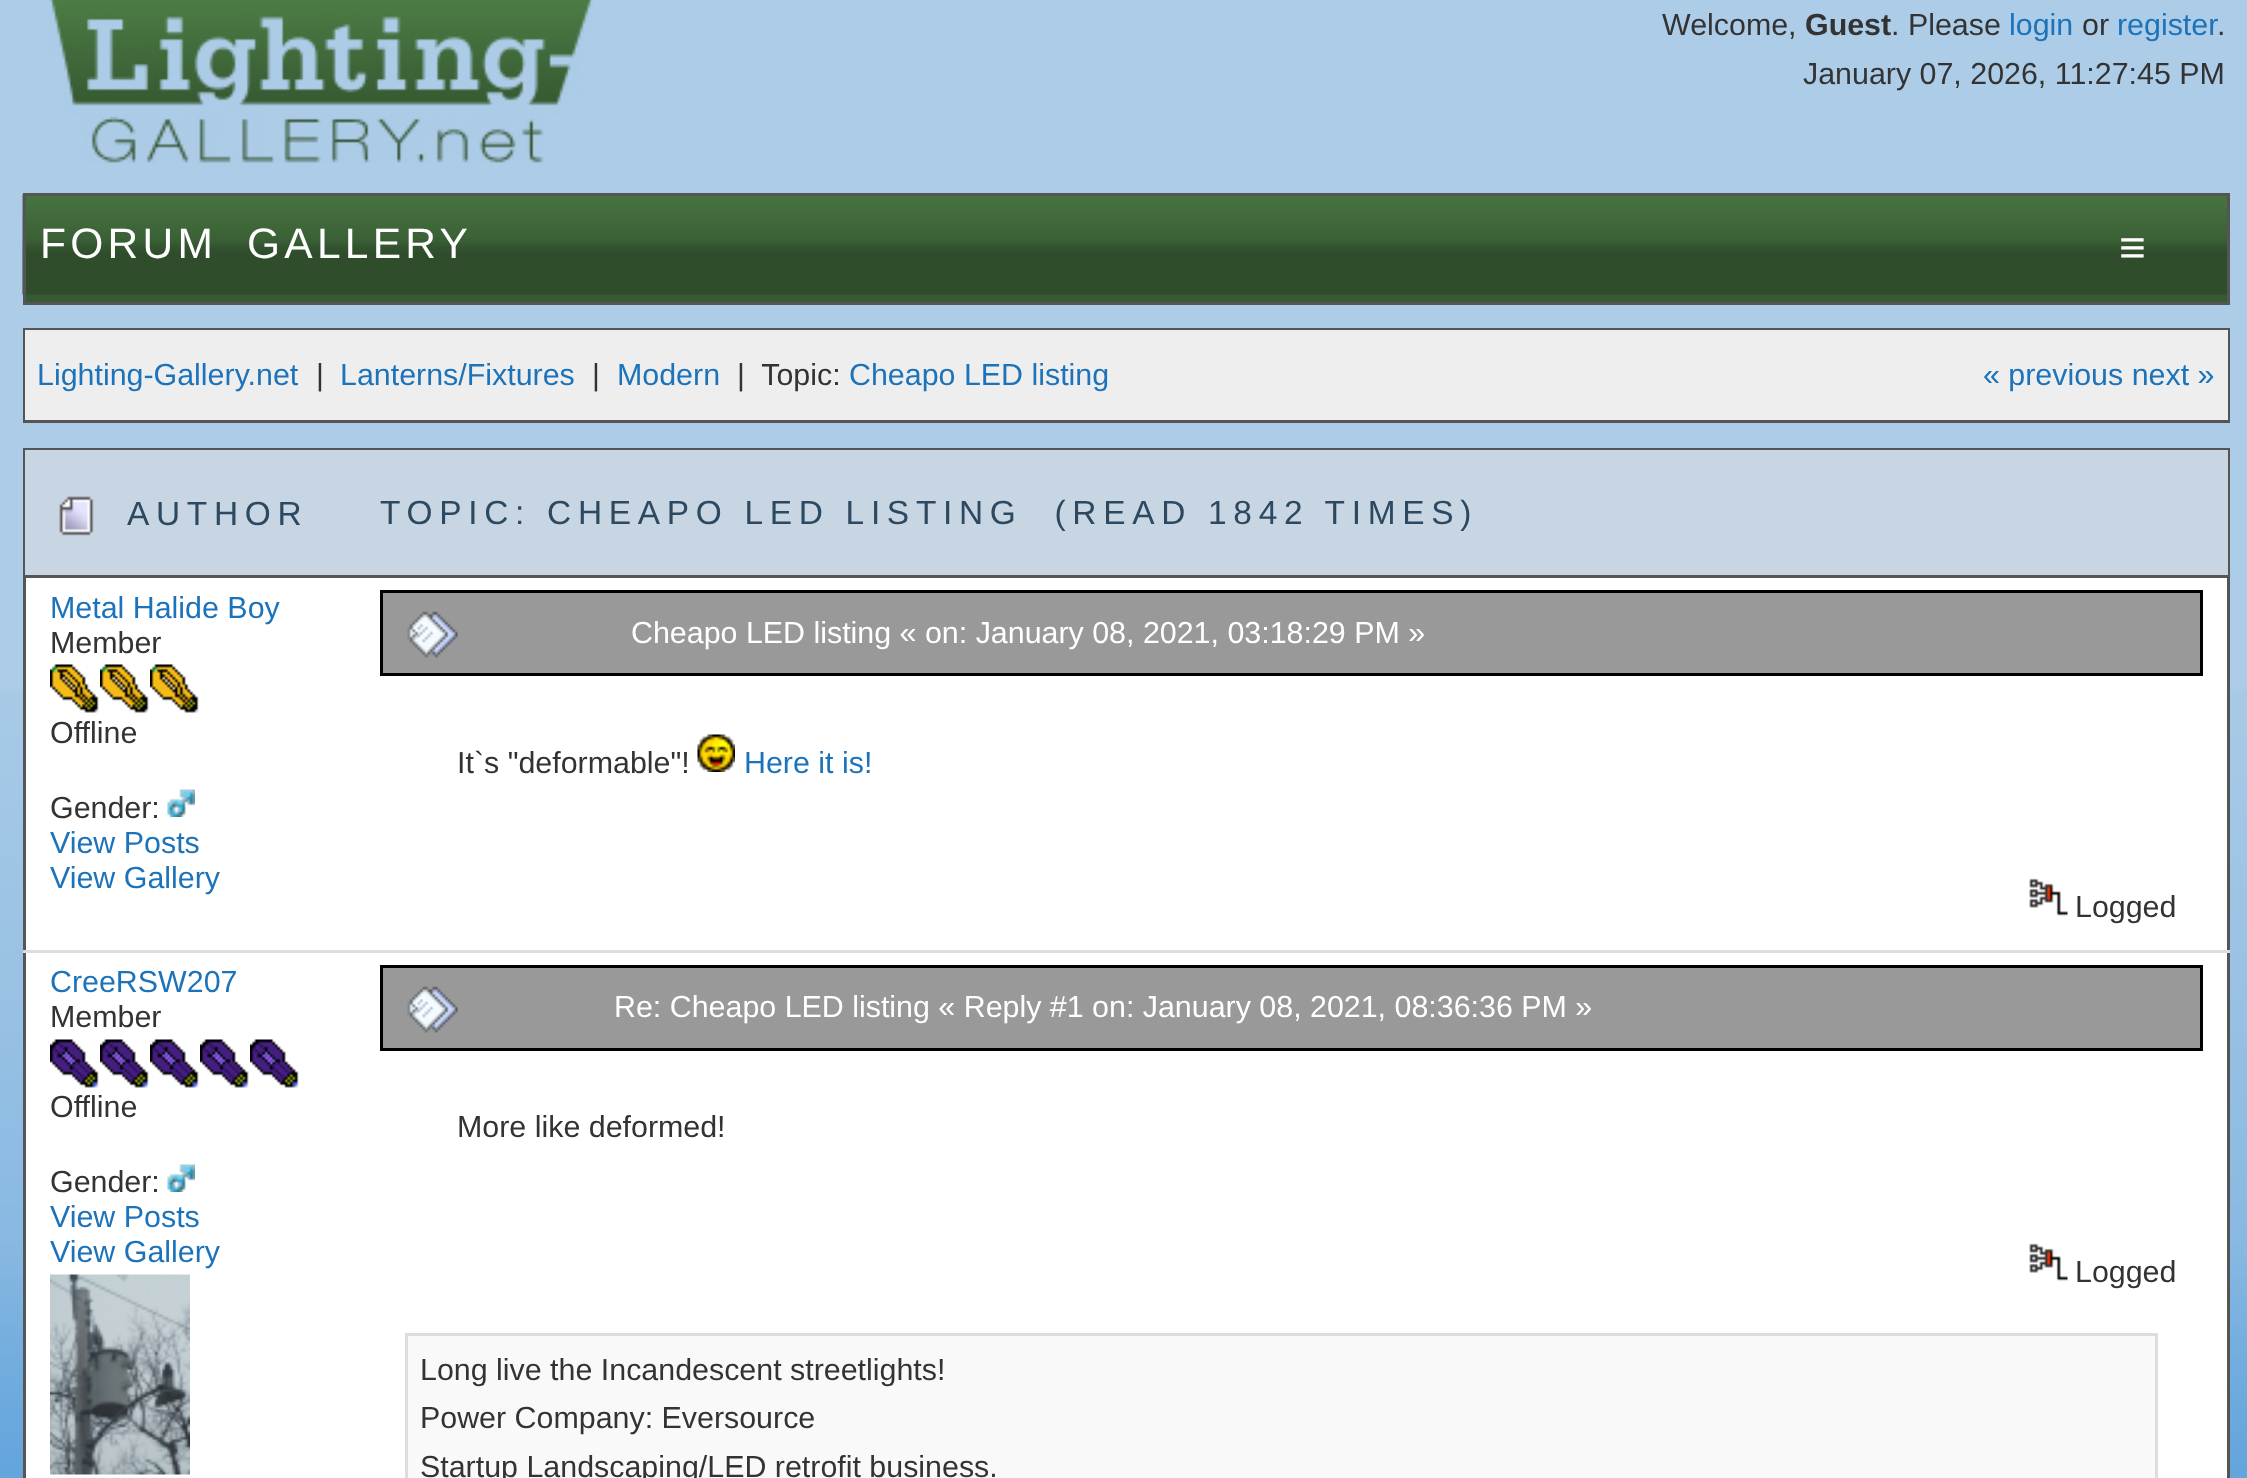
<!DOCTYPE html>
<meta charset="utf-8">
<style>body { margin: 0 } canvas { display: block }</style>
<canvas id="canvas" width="2247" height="1478"></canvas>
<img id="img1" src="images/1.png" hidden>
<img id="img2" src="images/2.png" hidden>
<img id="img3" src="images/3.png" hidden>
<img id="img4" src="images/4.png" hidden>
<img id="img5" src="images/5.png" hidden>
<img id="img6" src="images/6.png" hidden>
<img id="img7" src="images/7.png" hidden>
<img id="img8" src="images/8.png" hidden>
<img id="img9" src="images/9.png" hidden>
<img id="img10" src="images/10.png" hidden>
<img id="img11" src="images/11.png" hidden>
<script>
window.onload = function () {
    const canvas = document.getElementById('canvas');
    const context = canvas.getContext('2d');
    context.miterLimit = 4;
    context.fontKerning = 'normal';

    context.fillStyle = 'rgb(172, 204, 231)';
    context.fillRect(0, 0, 2247, 1478);
    context.drawImage(document.getElementById('img1'), 0, 689, 2247, 789);
    context.drawImage(document.getElementById('img2'), 49, 0, 544, 163);
    context.fillStyle = 'rgb(55, 90, 50)';
    context.fillRect(26, 294, 2201, 8);
    context.drawImage(document.getElementById('img3'), 22, 194, 2205, 101);
    context.strokeStyle = 'rgb(85, 85, 85)';
    context.lineWidth = 3;
    context.strokeRect(24.5, 194.5, 2204, 109);
    context.strokeRect(24.5, 329.5, 2204, 92);
    context.fillStyle = 'rgb(238, 238, 238)';
    context.fillRect(25, 330, 2203, 90);
    context.fillStyle = 'rgb(255, 255, 255)';
    context.fillRect(26, 578, 2201, 900);
    context.strokeRect(24.5, 449.5, 2204, 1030);
    context.fillStyle = 'rgb(199, 214, 226)';
    context.fillRect(25, 450, 2203, 125);
    context.drawImage(document.getElementById('img4'), 59, 496, 35, 40);
    context.fillStyle = 'rgb(85, 85, 85)';
    context.fillRect(23, 575, 2207, 3);
    context.drawImage(document.getElementById('img5'), 50, 664, 49, 49);
    context.drawImage(document.getElementById('img5'), 100, 664, 49, 49);
    context.drawImage(document.getElementById('img5'), 150, 664, 49, 49);
    context.drawImage(document.getElementById('img6'), 167, 789, 28, 28);
    context.fillStyle = 'rgb(221, 221, 221)';
    context.fillRect(23, 950, 2207, 3);
    context.fillStyle = 'rgb(153, 153, 153)';
    context.fillRect(383, 593, 1817, 80);
    context.fillStyle = 'rgb(0, 0, 0)';
    context.fillRect(380, 590, 1823, 3);
    context.fillRect(2200, 590, 3, 85);
    context.fillRect(380, 673, 1823, 3);
    context.fillRect(380, 590, 3, 85);
    context.drawImage(document.getElementById('img7'), 407, 611, 51, 47);
    context.drawImage(document.getElementById('img8'), 697, 734, 38, 38);
    context.drawImage(document.getElementById('img9'), 2029, 878, 39, 38);
    context.drawImage(document.getElementById('img10'), 50, 1039, 49, 49);
    context.drawImage(document.getElementById('img10'), 100, 1039, 49, 49);
    context.drawImage(document.getElementById('img10'), 150, 1039, 49, 49);
    context.drawImage(document.getElementById('img10'), 200, 1039, 49, 49);
    context.drawImage(document.getElementById('img10'), 250, 1039, 49, 49);
    context.drawImage(document.getElementById('img6'), 167, 1164, 28, 28);
    context.drawImage(document.getElementById('img11'), 50, 1274, 140, 201);
    context.fillStyle = 'rgb(153, 153, 153)';
    context.fillRect(383, 968, 1817, 80);
    context.fillStyle = 'rgb(0, 0, 0)';
    context.fillRect(380, 965, 1823, 3);
    context.fillRect(2200, 965, 3, 85);
    context.fillRect(380, 1048, 1823, 3);
    context.fillRect(380, 965, 3, 85);
    context.drawImage(document.getElementById('img7'), 407, 986, 51, 47);
    context.drawImage(document.getElementById('img9'), 2029, 1243, 39, 38);
    context.fillStyle = 'rgb(249, 249, 249)';
    context.beginPath();
    context.rect(406.5, 1334.5, 1750, 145);
    context.fill();
    context.strokeStyle = 'rgb(221, 221, 221)';
    context.stroke();
    context.font = '30.4px Liberation Sans';
    context.fillStyle = 'rgb(51, 51, 51)';
    context.fillText('Welcome,', 1662, 35);
    context.font = 'bold 30.4px Liberation Sans';
    context.fillText('Guest', 1805, 35);
    context.font = '30.4px Liberation Sans';
    context.fillText('. Please', 1891, 35);
    context.fillStyle = 'rgb(28, 115, 186)';
    context.fillText('login', 2009, 35);
    context.fillStyle = 'rgb(51, 51, 51)';
    context.fillText('or', 2082, 35);
    context.fillStyle = 'rgb(28, 115, 186)';
    context.fillText('register', 2117, 35);
    context.fillStyle = 'rgb(51, 51, 51)';
    context.fillText('.', 2217, 35);
    context.fillText('January 07, 2026, 11:27:45 PM', 1803, 84);
    context.letterSpacing = '4.25px';
    context.font = '42.5px Liberation Sans';
    context.fillStyle = 'rgb(255, 255, 255)';
    context.fillText('FORUM', 40, 258);
    context.fillText('GALLERY', 247, 258);
    context.letterSpacing = '5px';
    context.font = '46px Liberation Sans';
    context.fillText('≡', 2119, 263);
    context.letterSpacing = '0px';
    context.font = '30.4px Liberation Sans';
    context.fillStyle = 'rgb(28, 115, 186)';
    context.fillText('Lighting-Gallery.net', 37, 385);
    context.fillStyle = 'rgb(51, 51, 51)';
    context.fillText('|', 316, 385);
    context.fillStyle = 'rgb(28, 115, 186)';
    context.fillText('Lanterns/Fixtures', 340, 385);
    context.fillStyle = 'rgb(51, 51, 51)';
    context.fillText('|', 592, 385);
    context.fillStyle = 'rgb(28, 115, 186)';
    context.fillText('Modern', 617, 385);
    context.fillStyle = 'rgb(51, 51, 51)';
    context.fillText('|  Topic:', 737, 385);
    context.fillStyle = 'rgb(28, 115, 186)';
    context.fillText('Cheapo LED listing', 849, 385);
    context.fillText('« previous next »', 1983, 385);
    context.letterSpacing = '6.7px';
    context.font = '33.45px Liberation Sans';
    context.fillStyle = 'rgb(44, 73, 97)';
    context.fillText('AUTHOR', 127, 525);
    context.fillText('TOPIC: CHEAPO LED LISTING  (READ 1842 TIMES)', 380, 524);
    context.letterSpacing = '0px';
    context.font = '30.4px Liberation Sans';
    context.fillStyle = 'rgb(28, 115, 186)';
    context.fillText('Metal Halide Boy', 50, 618);
    context.fillStyle = 'rgb(51, 51, 51)';
    context.fillText('Member', 50, 653);
    context.fillText('Offline', 50, 743);
    context.fillText('Gender:', 50, 818);
    context.fillStyle = 'rgb(28, 115, 186)';
    context.fillText('View Posts', 50, 853);
    context.fillText('View Gallery', 50, 888);
    context.fillStyle = 'rgb(255, 255, 255)';
    context.fillText('Cheapo LED listing « on: January 08, 2021, 03:18:29 PM »', 631, 643);
    context.fillStyle = 'rgb(51, 51, 51)';
    context.fillText('It`s "deformable"!', 457, 773);
    context.fillStyle = 'rgb(28, 115, 186)';
    context.fillText('Here it is!', 744, 773);
    context.fillStyle = 'rgb(51, 51, 51)';
    context.fillText('Logged', 2075, 917);
    context.fillStyle = 'rgb(28, 115, 186)';
    context.fillText('CreeRSW207', 50, 992);
    context.fillStyle = 'rgb(51, 51, 51)';
    context.fillText('Member', 50, 1027);
    context.fillText('Offline', 50, 1117);
    context.fillText('Gender:', 50, 1192);
    context.fillStyle = 'rgb(28, 115, 186)';
    context.fillText('View Posts', 50, 1227);
    context.fillText('View Gallery', 50, 1262);
    context.fillStyle = 'rgb(255, 255, 255)';
    context.fillText('Re: Cheapo LED listing « Reply #1 on: January 08, 2021, 08:36:36 PM »', 614, 1017);
    context.fillStyle = 'rgb(51, 51, 51)';
    context.fillText('More like deformed!', 457, 1137);
    context.fillText('Logged', 2075, 1282);
    context.fillText('Long live the Incandescent streetlights!', 420, 1380);
    context.fillText('Power Company: Eversource', 420, 1428);
    context.fillText('Startup Landscaping/LED retrofit business.', 420, 1477);
};
</script>
